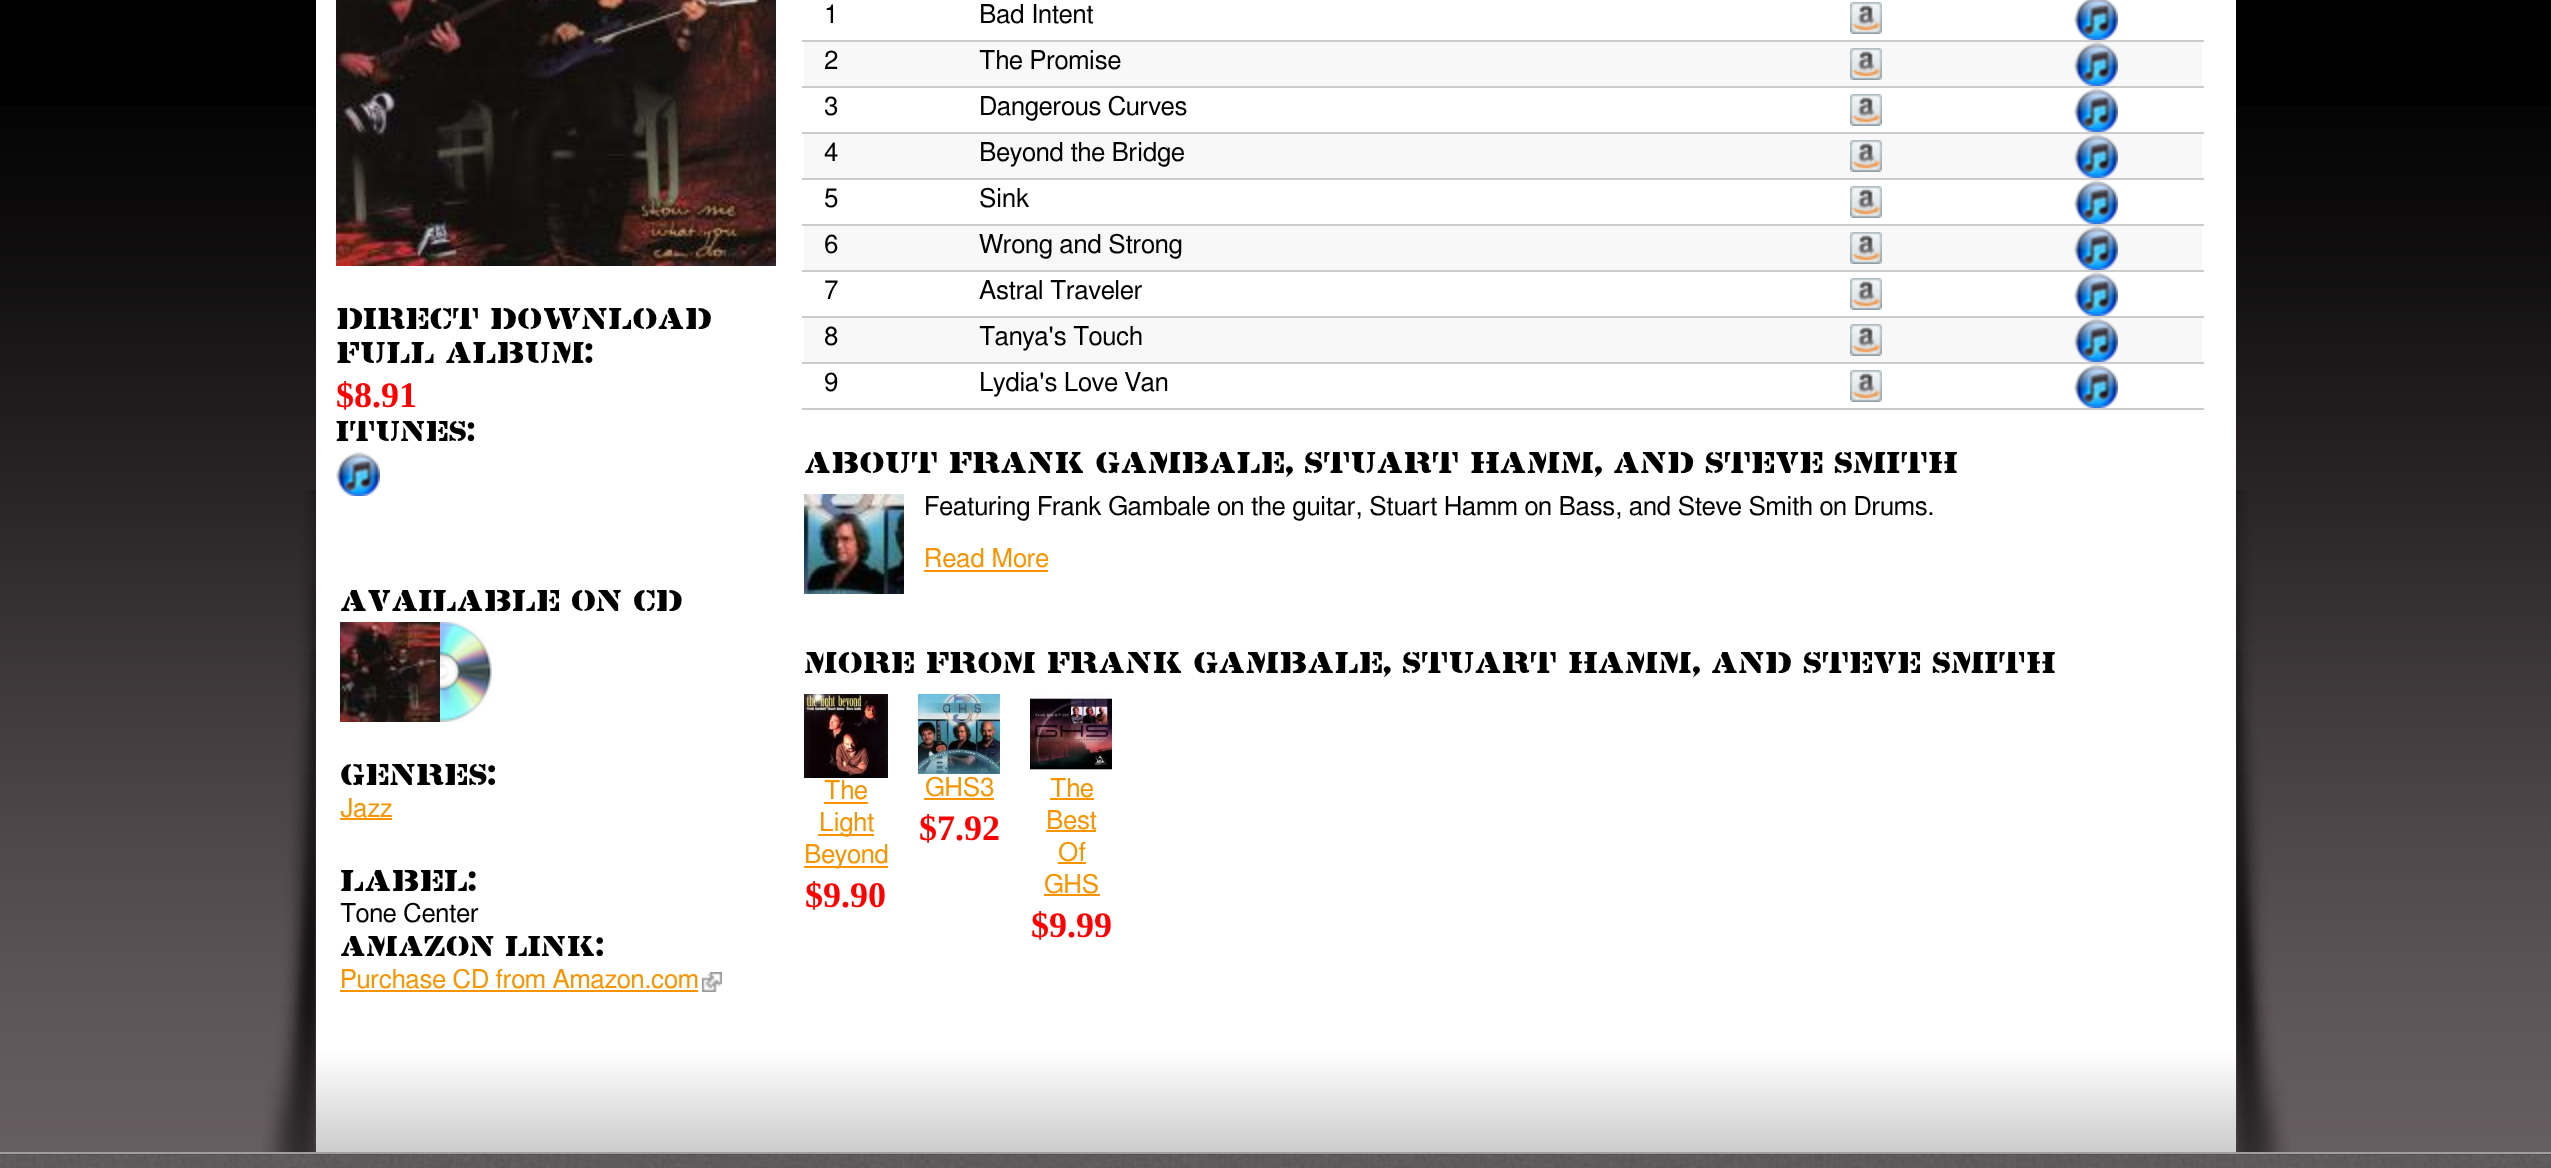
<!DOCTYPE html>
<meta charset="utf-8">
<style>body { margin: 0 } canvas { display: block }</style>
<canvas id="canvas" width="2551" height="1168"></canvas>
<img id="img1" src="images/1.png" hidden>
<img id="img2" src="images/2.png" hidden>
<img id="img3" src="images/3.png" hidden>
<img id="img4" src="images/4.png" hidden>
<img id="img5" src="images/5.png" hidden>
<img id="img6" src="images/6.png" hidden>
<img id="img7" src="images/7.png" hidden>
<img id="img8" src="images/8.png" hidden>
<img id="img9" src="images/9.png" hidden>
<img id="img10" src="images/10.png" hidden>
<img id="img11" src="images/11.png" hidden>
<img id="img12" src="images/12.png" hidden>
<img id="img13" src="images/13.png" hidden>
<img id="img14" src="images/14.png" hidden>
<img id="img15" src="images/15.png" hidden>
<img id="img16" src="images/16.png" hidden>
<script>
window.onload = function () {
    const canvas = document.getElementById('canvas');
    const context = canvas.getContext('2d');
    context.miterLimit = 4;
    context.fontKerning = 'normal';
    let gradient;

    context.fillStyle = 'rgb(0, 0, 0)';
    context.fillRect(0, 0, 2551, 1168);
    context.drawImage(document.getElementById('img1'), 0, 106, 2551, 1046);
    context.drawImage(document.getElementById('img2'), 263, 490, 2026, 662);
    context.fillStyle = 'rgb(255, 255, 255)';
    context.fillRect(316, 0, 1920, 1052);
    context.drawImage(document.getElementById('img3'), 336, 0, 440, 266);
    context.drawImage(document.getElementById('img4'), 336, 452, 44, 44);
    context.drawImage(document.getElementById('img5'), 340, 622, 100, 100);
    context.drawImage(document.getElementById('img6'), 440, 622, 52, 100);
    context.fillStyle = 'rgb(247, 148, 0)';
    context.fillRect(340, 818, 52, 2);
    context.fillRect(340, 990, 358, 2);
    context.drawImage(document.getElementById('img7'), 702, 972, 20, 20);
    context.fillStyle = 'rgb(204, 204, 204)';
    context.fillRect(802, 40, 1402, 2);
    context.drawImage(document.getElementById('img8'), 1850, 2, 32, 32);
    context.drawImage(document.getElementById('img9'), 2074, 0, 44, 40);
    context.fillStyle = 'rgb(248, 248, 248)';
    context.fillRect(804, 42, 1398, 44);
    context.fillStyle = 'rgb(204, 204, 204)';
    context.fillRect(802, 86, 1402, 2);
    context.drawImage(document.getElementById('img10'), 1850, 48, 32, 32);
    context.drawImage(document.getElementById('img11'), 2074, 42, 44, 44);
    context.fillRect(802, 132, 1402, 2);
    context.drawImage(document.getElementById('img8'), 1850, 94, 32, 32);
    context.drawImage(document.getElementById('img4'), 2074, 88, 44, 44);
    context.fillStyle = 'rgb(248, 248, 248)';
    context.fillRect(804, 134, 1398, 44);
    context.fillStyle = 'rgb(204, 204, 204)';
    context.fillRect(802, 178, 1402, 2);
    context.drawImage(document.getElementById('img10'), 1850, 140, 32, 32);
    context.drawImage(document.getElementById('img11'), 2074, 134, 44, 44);
    context.fillRect(802, 224, 1402, 2);
    context.drawImage(document.getElementById('img8'), 1850, 186, 32, 32);
    context.drawImage(document.getElementById('img4'), 2074, 180, 44, 44);
    context.fillStyle = 'rgb(248, 248, 248)';
    context.fillRect(804, 226, 1398, 44);
    context.fillStyle = 'rgb(204, 204, 204)';
    context.fillRect(802, 270, 1402, 2);
    context.drawImage(document.getElementById('img10'), 1850, 232, 32, 32);
    context.drawImage(document.getElementById('img11'), 2074, 226, 44, 44);
    context.fillRect(802, 316, 1402, 2);
    context.drawImage(document.getElementById('img8'), 1850, 278, 32, 32);
    context.drawImage(document.getElementById('img4'), 2074, 272, 44, 44);
    context.fillStyle = 'rgb(248, 248, 248)';
    context.fillRect(804, 318, 1398, 44);
    context.fillStyle = 'rgb(204, 204, 204)';
    context.fillRect(802, 362, 1402, 2);
    context.drawImage(document.getElementById('img10'), 1850, 324, 32, 32);
    context.drawImage(document.getElementById('img11'), 2074, 318, 44, 44);
    context.fillRect(802, 408, 1402, 2);
    context.drawImage(document.getElementById('img8'), 1850, 370, 32, 32);
    context.drawImage(document.getElementById('img4'), 2074, 364, 44, 44);
    context.drawImage(document.getElementById('img12'), 804, 494, 100, 100);
    context.fillStyle = 'rgb(247, 148, 0)';
    context.fillRect(924, 570, 124, 2);
    context.drawImage(document.getElementById('img13'), 804, 694, 84, 84);
    context.fillRect(824, 802, 44, 2);
    context.fillRect(818, 834, 56, 2);
    context.fillRect(804, 866, 84, 2);
    context.drawImage(document.getElementById('img14'), 918, 694, 82, 80);
    context.fillRect(924, 798, 70, 2);
    context.drawImage(document.getElementById('img15'), 1030, 694, 82, 76);
    context.fillRect(1050, 798, 44, 2);
    context.fillRect(1046, 830, 50, 2);
    context.fillRect(1058, 862, 28, 2);
    context.fillRect(1044, 894, 56, 2);
    gradient = context.createLinearGradient(1276, 1052, 1276, 1152);
    gradient.addColorStop(0, 'rgb(255, 255, 255)');
    gradient.addColorStop(1, 'rgb(205, 204, 204)');
    context.fillStyle = gradient;
    context.fillRect(316, 1052, 1920, 100);
    context.drawImage(document.getElementById('img16'), 0, 1154, 2551, 14);
    context.fillStyle = 'rgb(160, 158, 157)';
    context.fillRect(0, 1152, 2551, 2);
    context.font = '100 27.3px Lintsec';
    context.fillStyle = 'rgb(0, 0, 0)';
    context.fillText('Direct download', 336, 329);
    context.fillText('full album:', 336, 363);
    context.font = 'bold 36px Liberation Serif';
    context.fillStyle = 'rgb(255, 0, 0)';
    context.fillText('$8.91', 336, 407);
    context.font = '100 26px Lintsec';
    context.fillStyle = 'rgb(0, 0, 0)';
    context.fillText('iTunes:', 336, 441);
    context.font = '100 27.3px Lintsec';
    context.fillText('Available on CD', 340, 611);
    context.fillText('Genres:', 340, 785);
    context.font = '26px FreeSans';
    context.fillStyle = 'rgb(247, 148, 0)';
    context.fillText('Jazz', 340, 817);
    context.font = '100 27.3px Lintsec';
    context.fillStyle = 'rgb(0, 0, 0)';
    context.fillText('Label:', 340, 891);
    context.font = '26px FreeSans';
    context.fillText('Tone Center', 340, 922);
    context.font = '100 26px Lintsec';
    context.fillText('Amazon Link:', 340, 956);
    context.font = '26px FreeSans';
    context.fillStyle = 'rgb(247, 148, 0)';
    context.fillText('Purchase CD from Amazon.com', 340, 988);
    context.fillStyle = 'rgb(0, 0, 0)';
    context.fillText('1', 824, 23);
    context.fillText('Bad Intent', 979, 23);
    context.fillText('2', 824, 69);
    context.fillText('The Promise', 979, 69);
    context.fillText('3', 824, 115);
    context.fillText('Dangerous Curves', 979, 115);
    context.fillText('4', 824, 161);
    context.fillText('Beyond the Bridge', 979, 161);
    context.fillText('5', 824, 207);
    context.fillText('Sink', 979, 207);
    context.fillText('6', 824, 253);
    context.fillText('Wrong and Strong', 979, 253);
    context.fillText('7', 824, 299);
    context.fillText('Astral Traveler', 979, 299);
    context.fillText('8', 824, 345);
    context.fillText('Tanya\'s Touch', 979, 345);
    context.fillText('9', 824, 391);
    context.fillText('Lydia\'s Love Van', 979, 391);
    context.font = '100 27.3px Lintsec';
    context.fillText('About Frank Gambale, Stuart Hamm, and Steve Smith', 804, 473);
    context.font = '26px FreeSans';
    context.fillText('Featuring Frank Gambale on the guitar, Stuart Hamm on Bass, and Steve Smith on Drums.', 924, 515);
    context.fillStyle = 'rgb(247, 148, 0)';
    context.fillText('Read More', 924, 567);
    context.font = '100 27.3px Lintsec';
    context.fillStyle = 'rgb(0, 0, 0)';
    context.fillText('More from Frank Gambale, Stuart Hamm, and Steve Smith', 804, 673);
    context.font = '26px FreeSans';
    context.fillStyle = 'rgb(247, 148, 0)';
    context.fillText('The', 824, 799);
    context.fillText('Light', 819, 831);
    context.fillText('Beyond', 804, 863);
    context.font = 'bold 36px Liberation Serif';
    context.fillStyle = 'rgb(255, 0, 0)';
    context.fillText('$9.90', 805, 907);
    context.font = '26px FreeSans';
    context.fillStyle = 'rgb(247, 148, 0)';
    context.fillText('GHS3', 925, 796);
    context.font = 'bold 36px Liberation Serif';
    context.fillStyle = 'rgb(255, 0, 0)';
    context.fillText('$7.92', 919, 840);
    context.font = '26px FreeSans';
    context.fillStyle = 'rgb(247, 148, 0)';
    context.fillText('The', 1050, 797);
    context.fillText('Best', 1046, 829);
    context.fillText('Of', 1058, 861);
    context.fillText('GHS', 1044, 893);
    context.font = 'bold 36px Liberation Serif';
    context.fillStyle = 'rgb(255, 0, 0)';
    context.fillText('$9.99', 1031, 937);
};
</script>
